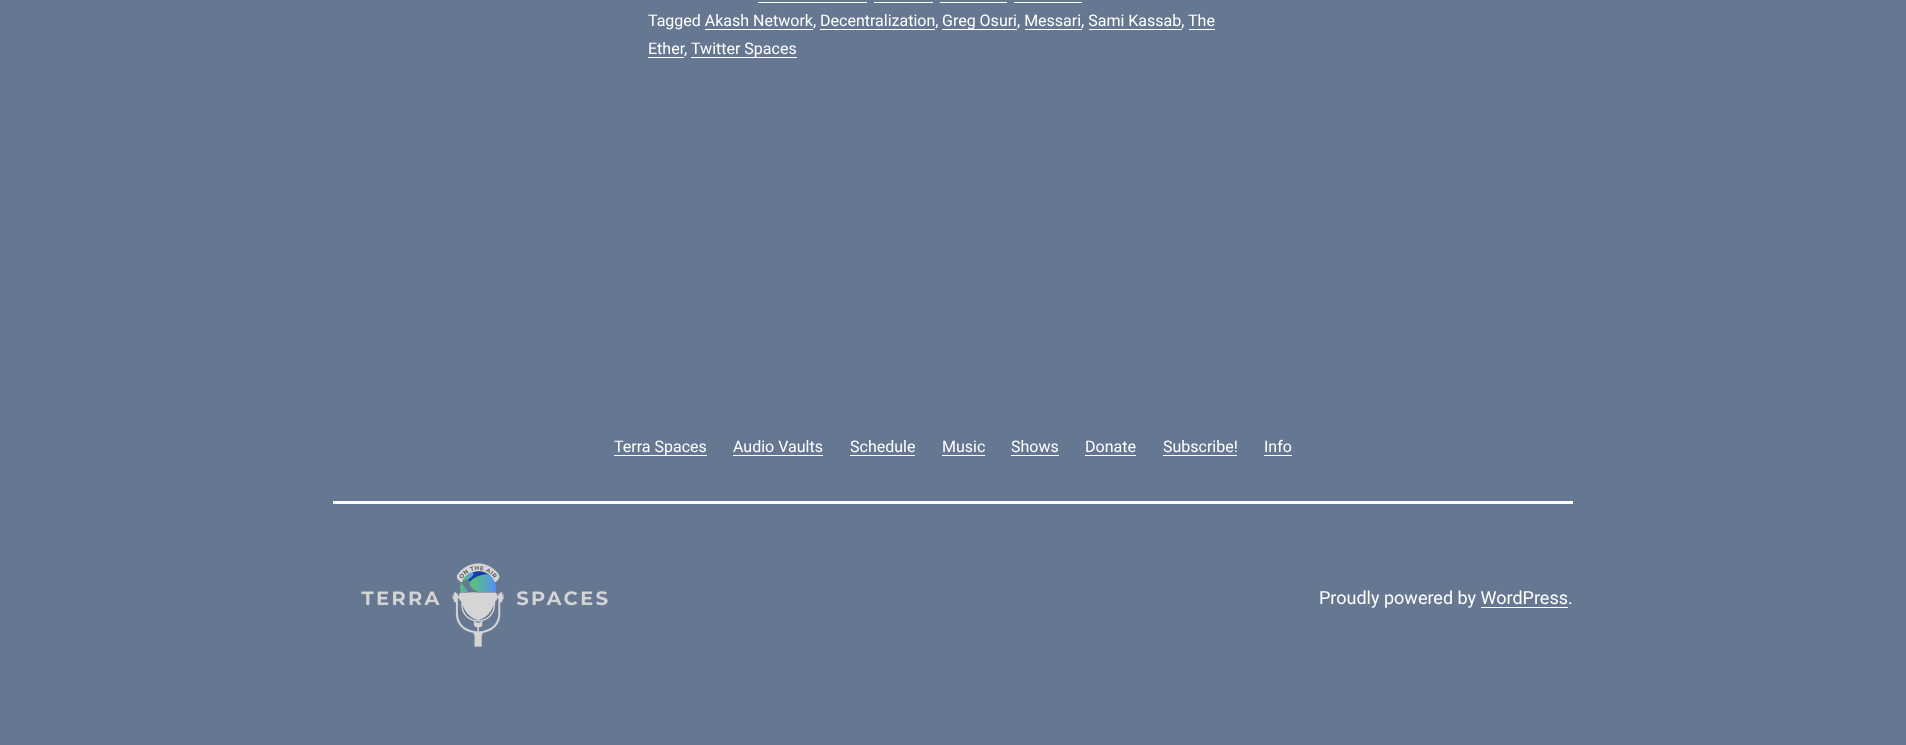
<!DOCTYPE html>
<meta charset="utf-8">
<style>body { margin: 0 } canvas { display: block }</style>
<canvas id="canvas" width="1906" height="745"></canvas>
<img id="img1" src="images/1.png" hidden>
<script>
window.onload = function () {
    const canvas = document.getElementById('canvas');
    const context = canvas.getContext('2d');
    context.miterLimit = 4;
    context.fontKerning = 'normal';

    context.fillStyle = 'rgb(101, 119, 145)';
    context.fillRect(0, 0, 1906, 745);
    context.fillStyle = 'rgb(255, 255, 255)';
    context.fillRect(758, 2, 109, 1);
    context.fillRect(874, 2, 59, 1);
    context.fillRect(940, 2, 67, 1);
    context.fillRect(1014, 2, 68, 1);
    context.fillRect(942, 29, 75, 1);
    context.fillRect(705, 29, 108, 1);
    context.fillRect(820, 29, 115, 1);
    context.fillRect(1025, 29, 57, 1);
    context.fillRect(1089, 29, 93, 1);
    context.fillRect(1189, 29, 26, 1);
    context.fillRect(648, 57, 36, 1);
    context.fillRect(691, 57, 106, 1);
    context.fillRect(614, 455, 93, 1);
    context.fillRect(733, 455, 90, 1);
    context.fillRect(850, 455, 65, 1);
    context.fillRect(942, 455, 43, 1);
    context.fillRect(1011, 455, 48, 1);
    context.fillRect(1085, 455, 51, 1);
    context.fillRect(1163, 455, 74, 1);
    context.fillRect(1264, 455, 28, 1);
    context.fillRect(333, 501, 1240, 3);
    context.drawImage(document.getElementById('img1'), 361, 563, 247, 84);
    context.fillRect(1481, 607, 87, 1);
    context.font = '16px Roboto';
    context.fillText('Tagged Akash Network, Decentralization,', 648, 26);
    context.fillText('Greg Osuri, Messari, Sami Kassab, The', 942, 26);
    context.fillText('Ether', 648, 54);
    context.fillText(',', 684, 54);
    context.fillText('Twitter Spaces', 691, 54);
    context.fillText('Terra Spaces', 614, 452);
    context.fillText('Audio Vaults', 733, 452);
    context.fillText('Schedule', 850, 452);
    context.fillText('Music', 942, 452);
    context.fillText('Shows', 1011, 452);
    context.fillText('Donate', 1085, 452);
    context.fillText('Subscribe!', 1163, 452);
    context.fillText('Info', 1264, 452);
    context.font = '18px Roboto';
    context.fillText('Proudly powered by WordPress.', 1319, 604);
};
</script>
